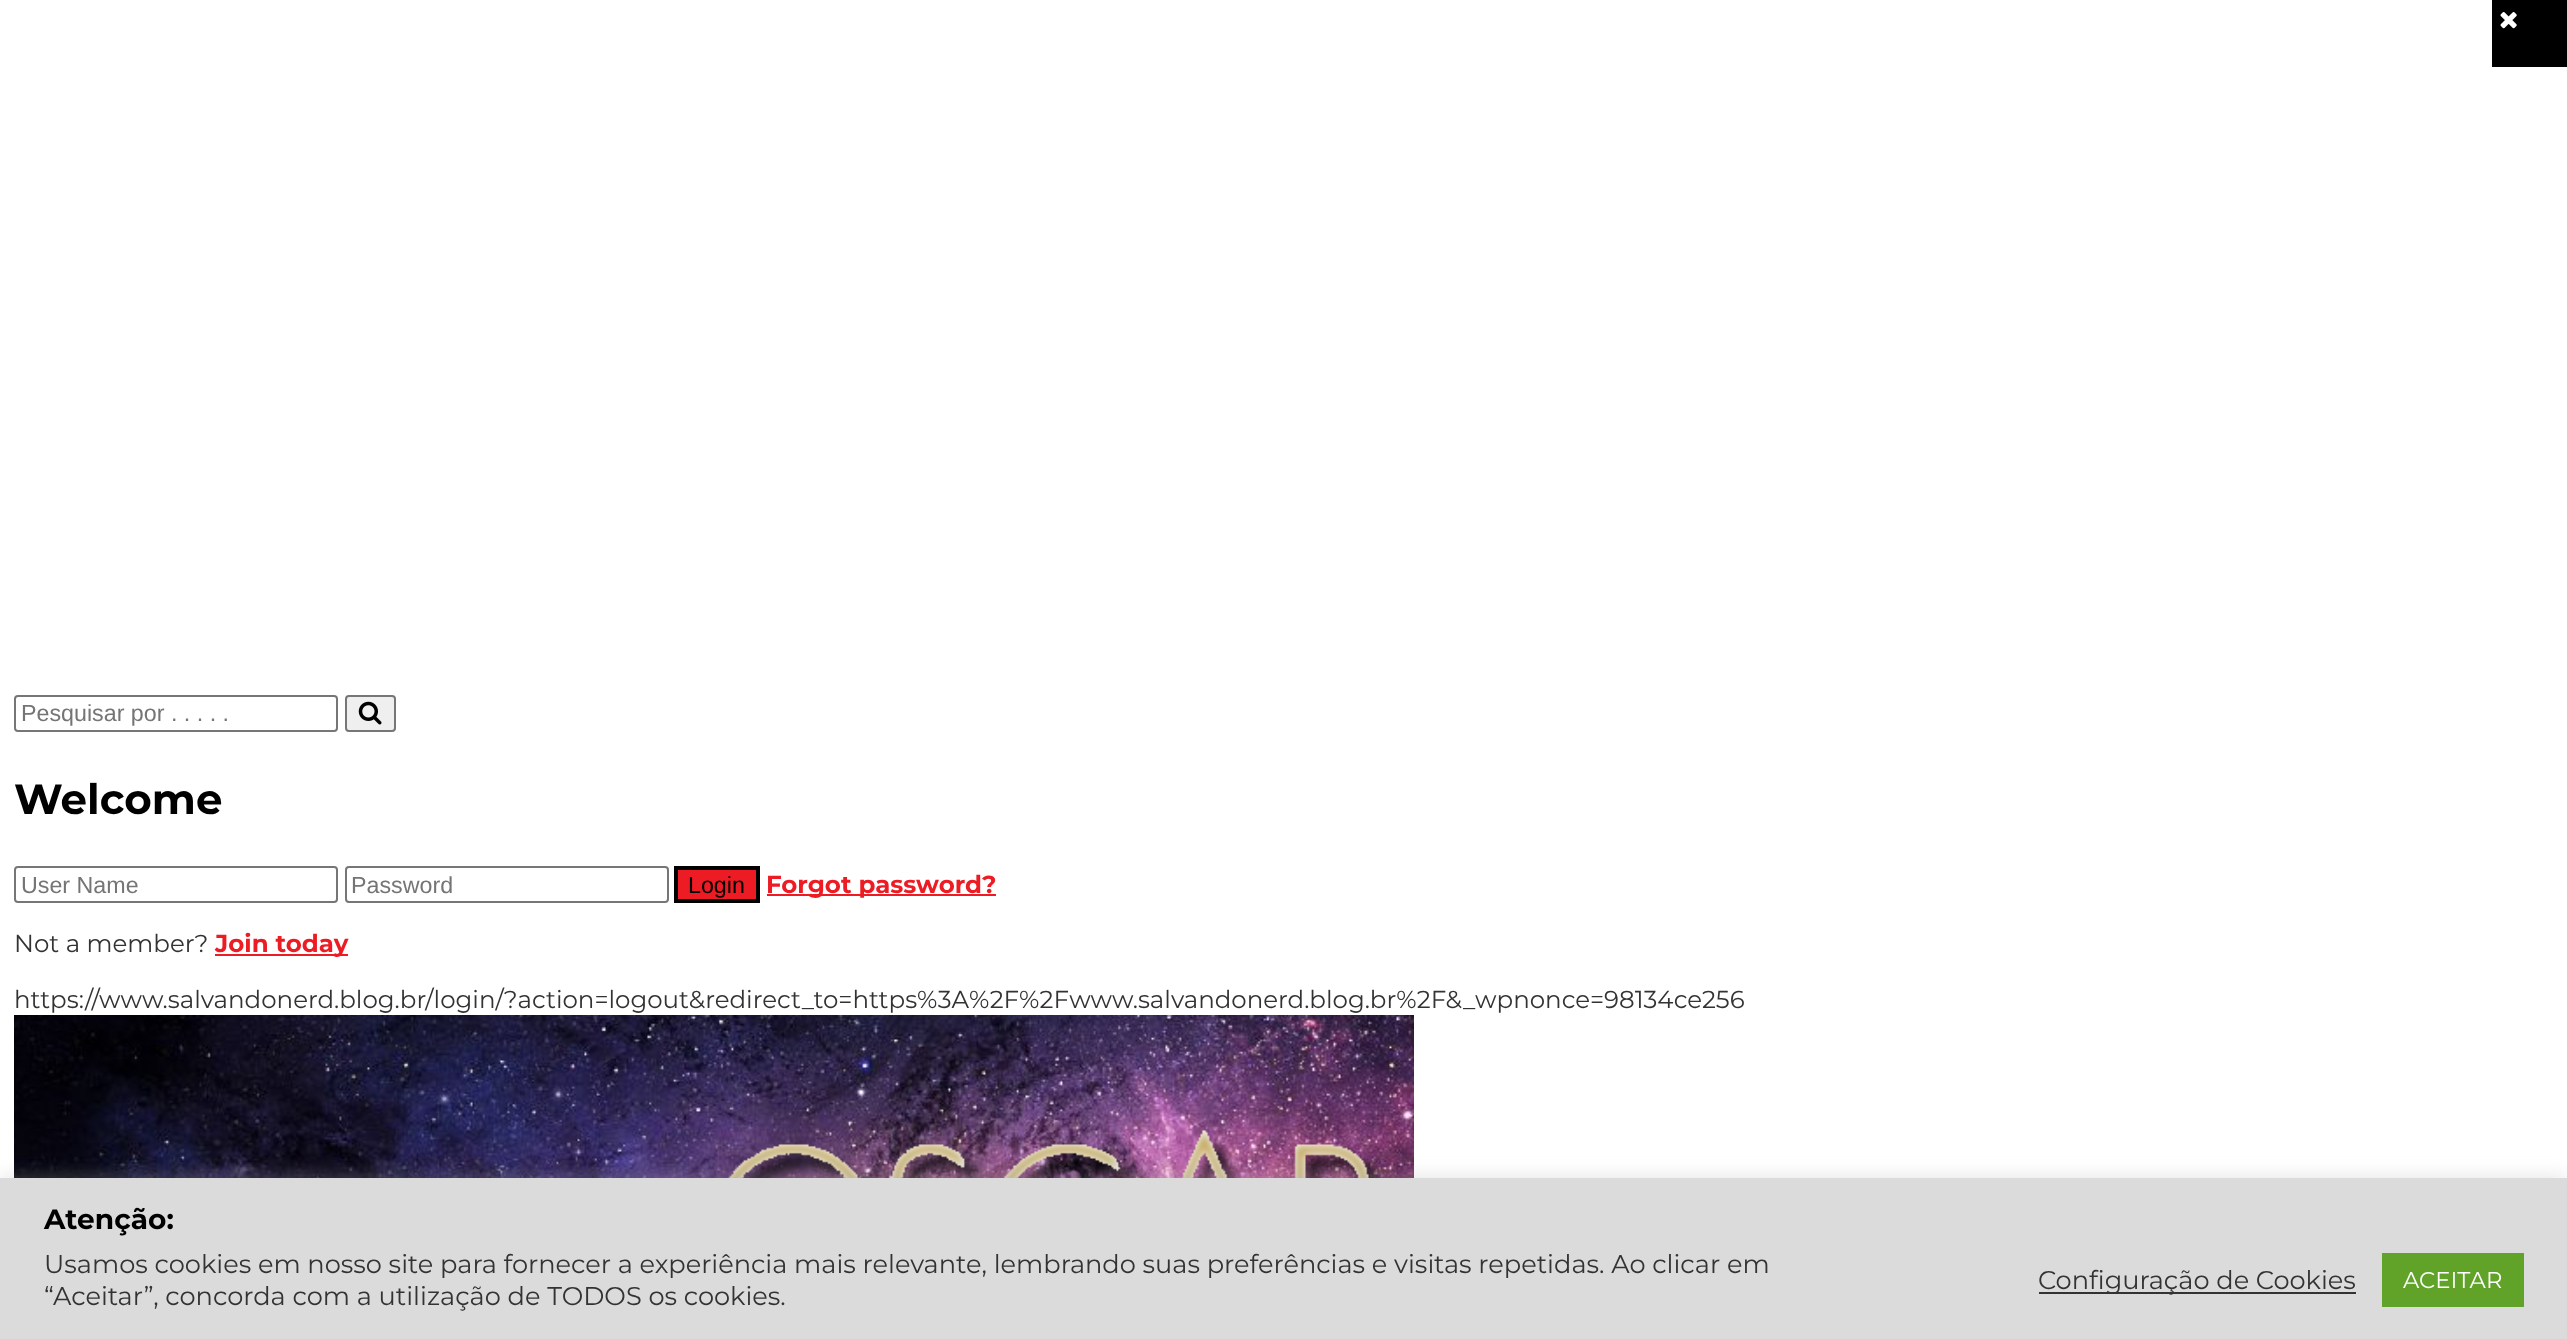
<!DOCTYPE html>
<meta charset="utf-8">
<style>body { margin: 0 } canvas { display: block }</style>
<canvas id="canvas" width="2567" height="1339"></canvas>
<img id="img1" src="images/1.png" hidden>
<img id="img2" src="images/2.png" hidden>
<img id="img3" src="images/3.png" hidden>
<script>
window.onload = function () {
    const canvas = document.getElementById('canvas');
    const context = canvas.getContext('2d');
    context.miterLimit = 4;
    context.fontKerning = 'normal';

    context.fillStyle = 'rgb(255, 255, 255)';
    context.fillRect(0, 0, 2567, 1339);
    context.beginPath();
    context.roundRect(15, 696, 322, 35, 3);
    context.strokeStyle = 'rgb(118, 118, 118)';
    context.lineWidth = 2;
    context.stroke();
    context.fillStyle = 'rgb(239, 239, 239)';
    context.beginPath();
    context.roundRect(346, 696, 49, 35, 3);
    context.fill();
    context.stroke();
    context.drawImage(document.getElementById('img1'), 358, 701, 24, 24);
    context.fillStyle = 'rgb(0, 0, 0)';
    context.fillRect(2492, 0, 75, 67);
    context.drawImage(document.getElementById('img2'), 2500, 12, 17, 17);
    context.beginPath();
    context.roundRect(15, 867, 322, 35, 3);
    context.stroke();
    context.beginPath();
    context.roundRect(346, 867, 322, 35, 3);
    context.stroke();
    context.fillStyle = 'rgb(237, 28, 36)';
    context.beginPath();
    context.rect(676, 868, 82, 33);
    context.fill();
    context.strokeStyle = 'rgb(0, 0, 0)';
    context.lineWidth = 4;
    context.stroke();
    context.fillRect(767, 894, 229, 2);
    context.fillRect(215, 954, 133, 2);
    context.drawImage(document.getElementById('img3'), 14, 1015, 1400, 163);
    context.fillStyle = 'rgba(172, 171, 171, 0.3)';
    context.filter = 'blur(9px)';
    context.beginPath();
    context.rect(0, 1176, 2567, 163);
    context.fill();
    context.filter = 'none';
    context.fillStyle = 'rgb(219, 219, 219)';
    context.fillRect(0, 1178, 2567, 161);
    context.fillStyle = 'rgb(51, 51, 51)';
    context.fillRect(2039, 1292, 317, 2);
    context.fillStyle = 'rgb(97, 162, 41)';
    context.fillRect(2382, 1253, 142, 54);
    context.font = '23.25px Liberation Sans';
    context.fillStyle = 'rgb(117, 117, 117)';
    context.fillText('Pesquisar por . . . . .', 21, 721);
    context.font = 'bold 42px Montserrat';
    context.fillStyle = 'rgb(0, 0, 0)';
    context.fillText('Welcome', 14, 814);
    context.font = '23.25px Liberation Sans';
    context.fillStyle = 'rgb(117, 117, 117)';
    context.fillText('User Name', 21, 893);
    context.fillText('Password', 351, 893);
    context.fillStyle = 'rgb(0, 0, 0)';
    context.fillText('Login', 688, 893);
    context.font = 'bold 24.5px Montserrat';
    context.fillStyle = 'rgb(237, 28, 36)';
    context.fillText('Forgot password?', 766, 893);
    context.font = '24.5px Montserrat';
    context.fillStyle = 'rgb(51, 51, 51)';
    context.fillText('Not a member?', 14, 952);
    context.font = 'bold 24.5px Montserrat';
    context.fillStyle = 'rgb(237, 28, 36)';
    context.fillText('Join today', 215, 952);
    context.font = '24.5px Montserrat';
    context.fillStyle = 'rgb(51, 51, 51)';
    context.fillText('https://www.salvandonerd.blog.br/login/?action=logout&redirect_to=https%3A%2F%2Fwww.salvandonerd.blog.br%2F&_wpnonce=98134ce256', 14, 1008);
    context.font = 'bold 28px Montserrat';
    context.fillStyle = 'rgb(0, 0, 0)';
    context.fillText('Atenção:', 44, 1229);
    context.font = '25.67px Montserrat';
    context.fillStyle = 'rgb(51, 51, 51)';
    context.fillText('Usamos cookies em nosso site para fornecer a experiência mais relevante, lembrando suas preferências e visitas repetidas. Ao clicar em', 44, 1273);
    context.fillText('“Aceitar”, concorda com a utilização de TODOS os cookies.', 44, 1305);
    context.fillText('Configuração de Cookies', 2038, 1289);
    context.font = '22.75px Montserrat';
    context.fillStyle = 'rgb(255, 255, 255)';
    context.fillText('ACEITAR', 2403, 1288);
};
</script>
